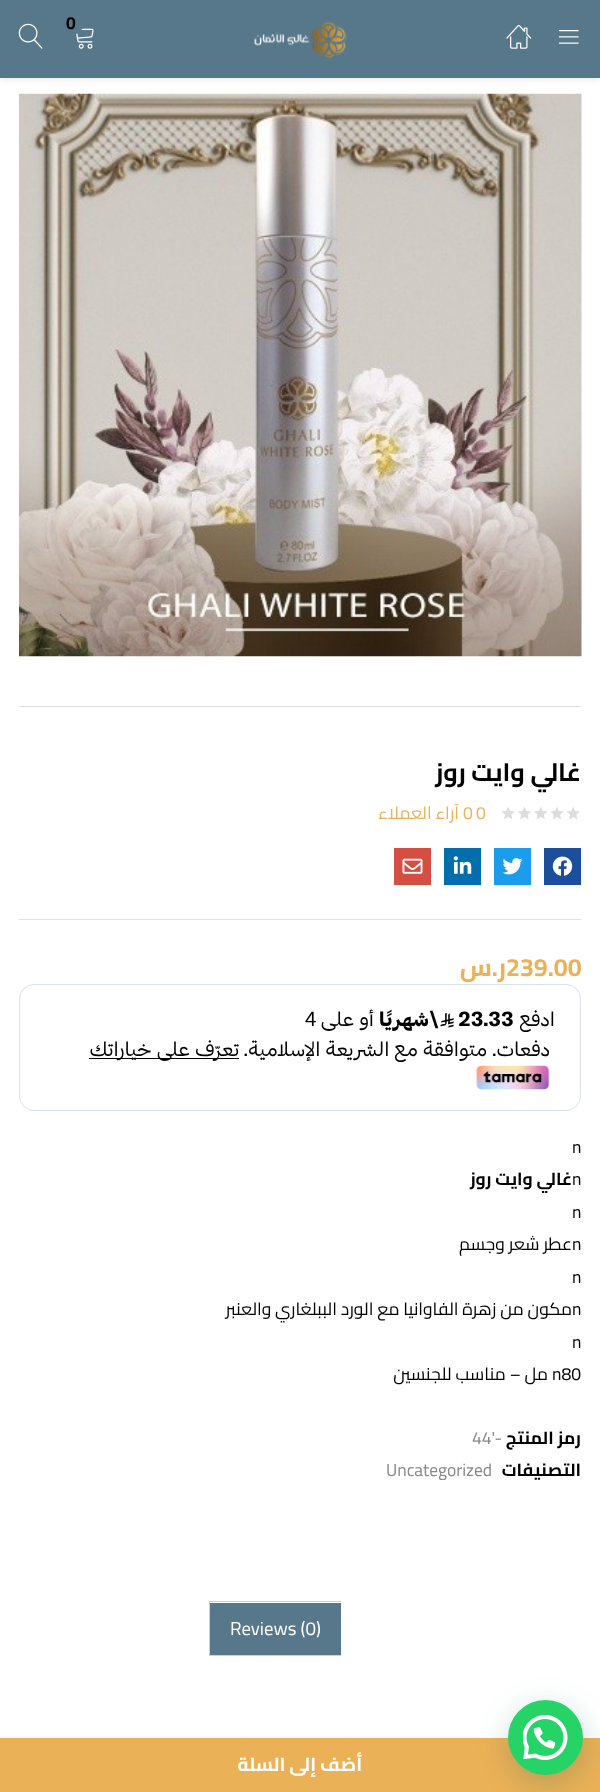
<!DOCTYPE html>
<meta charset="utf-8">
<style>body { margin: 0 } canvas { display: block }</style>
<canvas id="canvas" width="600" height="1792"></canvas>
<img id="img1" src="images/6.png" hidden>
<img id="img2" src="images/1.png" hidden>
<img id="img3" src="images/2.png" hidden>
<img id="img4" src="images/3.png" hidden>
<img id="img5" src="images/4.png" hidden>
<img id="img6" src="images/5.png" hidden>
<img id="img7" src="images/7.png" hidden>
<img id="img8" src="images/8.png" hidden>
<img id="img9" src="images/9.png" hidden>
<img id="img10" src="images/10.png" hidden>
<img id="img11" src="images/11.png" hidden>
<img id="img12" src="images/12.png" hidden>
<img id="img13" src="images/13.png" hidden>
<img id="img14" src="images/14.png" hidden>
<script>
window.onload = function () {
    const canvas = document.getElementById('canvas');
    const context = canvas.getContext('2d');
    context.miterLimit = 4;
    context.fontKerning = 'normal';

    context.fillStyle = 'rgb(255, 255, 255)';
    context.fillRect(0, 0, 600, 1792);
    context.drawImage(document.getElementById('img1'), 19, 93, 563, 564);
    context.fillStyle = 'rgba(0, 0, 0, 0.1)';
    context.filter = 'blur(5px)';
    context.beginPath();
    context.rect(0, 0, 600, 78);
    context.fill();
    context.filter = 'none';
    context.fillStyle = 'rgb(87, 120, 139)';
    context.fillRect(0, 0, 600, 78);
    context.drawImage(document.getElementById('img2'), 558, 30, 21, 14);
    context.drawImage(document.getElementById('img3'), 506, 24, 26, 25);
    context.drawImage(document.getElementById('img4'), 254, 21, 93, 38);
    context.drawImage(document.getElementById('img5'), 76, 28, 18, 21);
    context.beginPath();
    context.arc(71.5, 22.5, 12.5, 0, 2 * Math.PI);
    context.fill();
    context.drawImage(document.getElementById('img6'), 18, 23, 25, 26);
    context.fillStyle = 'rgb(224, 224, 224)';
    context.fillRect(19, 706, 562, 1);
    context.drawImage(document.getElementById('img7'), 501, 806, 79, 14);
    context.fillStyle = 'rgb(27, 78, 155)';
    context.fillRect(544, 848, 37, 37);
    context.drawImage(document.getElementById('img8'), 552, 856, 21, 20);
    context.fillStyle = 'rgb(28, 157, 235)';
    context.fillRect(494, 848, 37, 37);
    context.drawImage(document.getElementById('img9'), 502, 858, 21, 17);
    context.fillStyle = 'rgb(2, 111, 172)';
    context.fillRect(444, 848, 37, 37);
    context.drawImage(document.getElementById('img10'), 453, 856, 19, 18);
    context.fillStyle = 'rgb(212, 79, 66)';
    context.fillRect(394, 848, 37, 37);
    context.drawImage(document.getElementById('img11'), 402, 858, 21, 16);
    context.fillStyle = 'rgb(224, 224, 224)';
    context.fillRect(19, 919, 562, 1);
    context.beginPath();
    context.roundRect(19.5, 984.5, 561, 126, 14.5);
    context.strokeStyle = 'rgb(218, 224, 235)';
    context.stroke();
    context.drawImage(document.getElementById('img12'), 440, 1013, 14, 15);
    context.fillStyle = 'rgb(0, 0, 0)';
    context.fillRect(89, 1058, 150, 1);
    context.drawImage(document.getElementById('img13'), 476, 1065, 74, 25);
    context.fillStyle = 'rgb(235, 177, 87)';
    context.fillRect(0, 1738, 600, 54);
    context.fillStyle = 'rgb(208, 208, 208)';
    context.fillRect(209, 1601, 132, 1);
    context.fillRect(209, 1655, 132, 1);
    context.fillRect(209, 1601, 1, 55);
    context.fillStyle = 'rgb(87, 120, 139)';
    context.fillRect(210, 1603, 131, 52);
    context.fillStyle = 'rgba(7, 94, 84, 0.24)';
    context.filter = 'blur(15px)';
    context.beginPath();
    context.roundRect(509, 1708, 75, 75, 37.5);
    context.fill();
    context.filter = 'none';
    context.fillStyle = 'rgb(37, 211, 102)';
    context.beginPath();
    context.arc(545.5, 1737.5, 37.5, 0, 2 * Math.PI);
    context.fill();
    context.drawImage(document.getElementById('img14'), 523, 1715, 45, 45);
    context.font = 'bold 17.5px Cairo';
    context.fillStyle = 'rgb(0, 0, 0)';
    context.fillText('0', 66, 29);
    context.direction = 'rtl';
    context.font = 'bold 25px Cairo';
    context.fillText('غالي وايت روز', 581, 781);
    context.direction = 'ltr';
    context.font = '17.5px Cairo';
    context.fillStyle = 'rgb(235, 177, 87)';
    context.fillText('0', 476, 819);
    context.fillText('0', 463, 819);
    context.direction = 'rtl';
    context.fillText('آراء العملاء', 459, 819);
    context.direction = 'ltr';
    context.font = 'bold 25px Cairo';
    context.fillText('239.00', 506, 976);
    context.direction = 'rtl';
    context.fillText('ر.س', 506, 976);
    context.font = '20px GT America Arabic';
    context.fillStyle = 'rgb(0, 0, 0)';
    context.fillText('ادفع', 555, 1026);
    context.direction = 'ltr';
    context.font = 'bold 20px GT America Arabic';
    context.fillText('23.33', 458, 1026);
    context.direction = 'rtl';
    context.fillText('\\شهريًا', 439, 1026);
    context.font = '20px GT America Arabic';
    context.fillText('أو على', 374, 1026);
    context.direction = 'ltr';
    context.fillText('4', 305, 1026);
    context.direction = 'rtl';
    context.fillText('دفعات. متوافقة مع الشريعة الإسلامية.', 550, 1056);
    context.fillText('تعرّف على خياراتك', 239, 1056);
    context.direction = 'ltr';
    context.font = '17.5px Cairo';
    context.fillText('n', 572, 1153);
    context.fillText('n', 572, 1185);
    context.direction = 'rtl';
    context.font = 'bold 17.5px Cairo';
    context.fillText('غالي وايت روز', 572, 1185);
    context.direction = 'ltr';
    context.font = '17.5px Cairo';
    context.fillText('n', 572, 1218);
    context.fillText('n', 572, 1250);
    context.direction = 'rtl';
    context.fillText('عطر شعر وجسم', 572, 1250);
    context.direction = 'ltr';
    context.fillText('n', 572, 1283);
    context.fillText('n', 572, 1315);
    context.direction = 'rtl';
    context.fillText('مكون من زهرة الفاوانيا مع الورد الببلغاري والعنبر', 572, 1315);
    context.direction = 'ltr';
    context.fillText('n', 572, 1348);
    context.fillText('n80', 552, 1380);
    context.direction = 'rtl';
    context.fillText('مل – مناسب للجنسين', 548, 1380);
    context.font = 'bold 17.5px Cairo';
    context.fillText('رمز المنتج', 581, 1444);
    context.direction = 'ltr';
    context.font = '17.5px Cairo';
    context.fillStyle = 'rgb(136, 136, 136)';
    context.fillText('44\'-', 472, 1444);
    context.direction = 'rtl';
    context.font = 'bold 17.5px Cairo';
    context.fillStyle = 'rgb(0, 0, 0)';
    context.fillText('التصنيفات', 581, 1476);
    context.direction = 'ltr';
    context.font = '17.5px Cairo';
    context.fillStyle = 'rgb(136, 136, 136)';
    context.fillText('Uncategorized', 386, 1476);
    context.direction = 'rtl';
    context.font = 'bold 18.75px Cairo';
    context.fillStyle = 'rgb(255, 255, 255)';
    context.fillText('أضف إلى السلة', 362, 1771);
    context.direction = 'ltr';
    context.font = '18.75px Cairo';
    context.fillText('Reviews (0)', 230, 1635);
};
</script>
